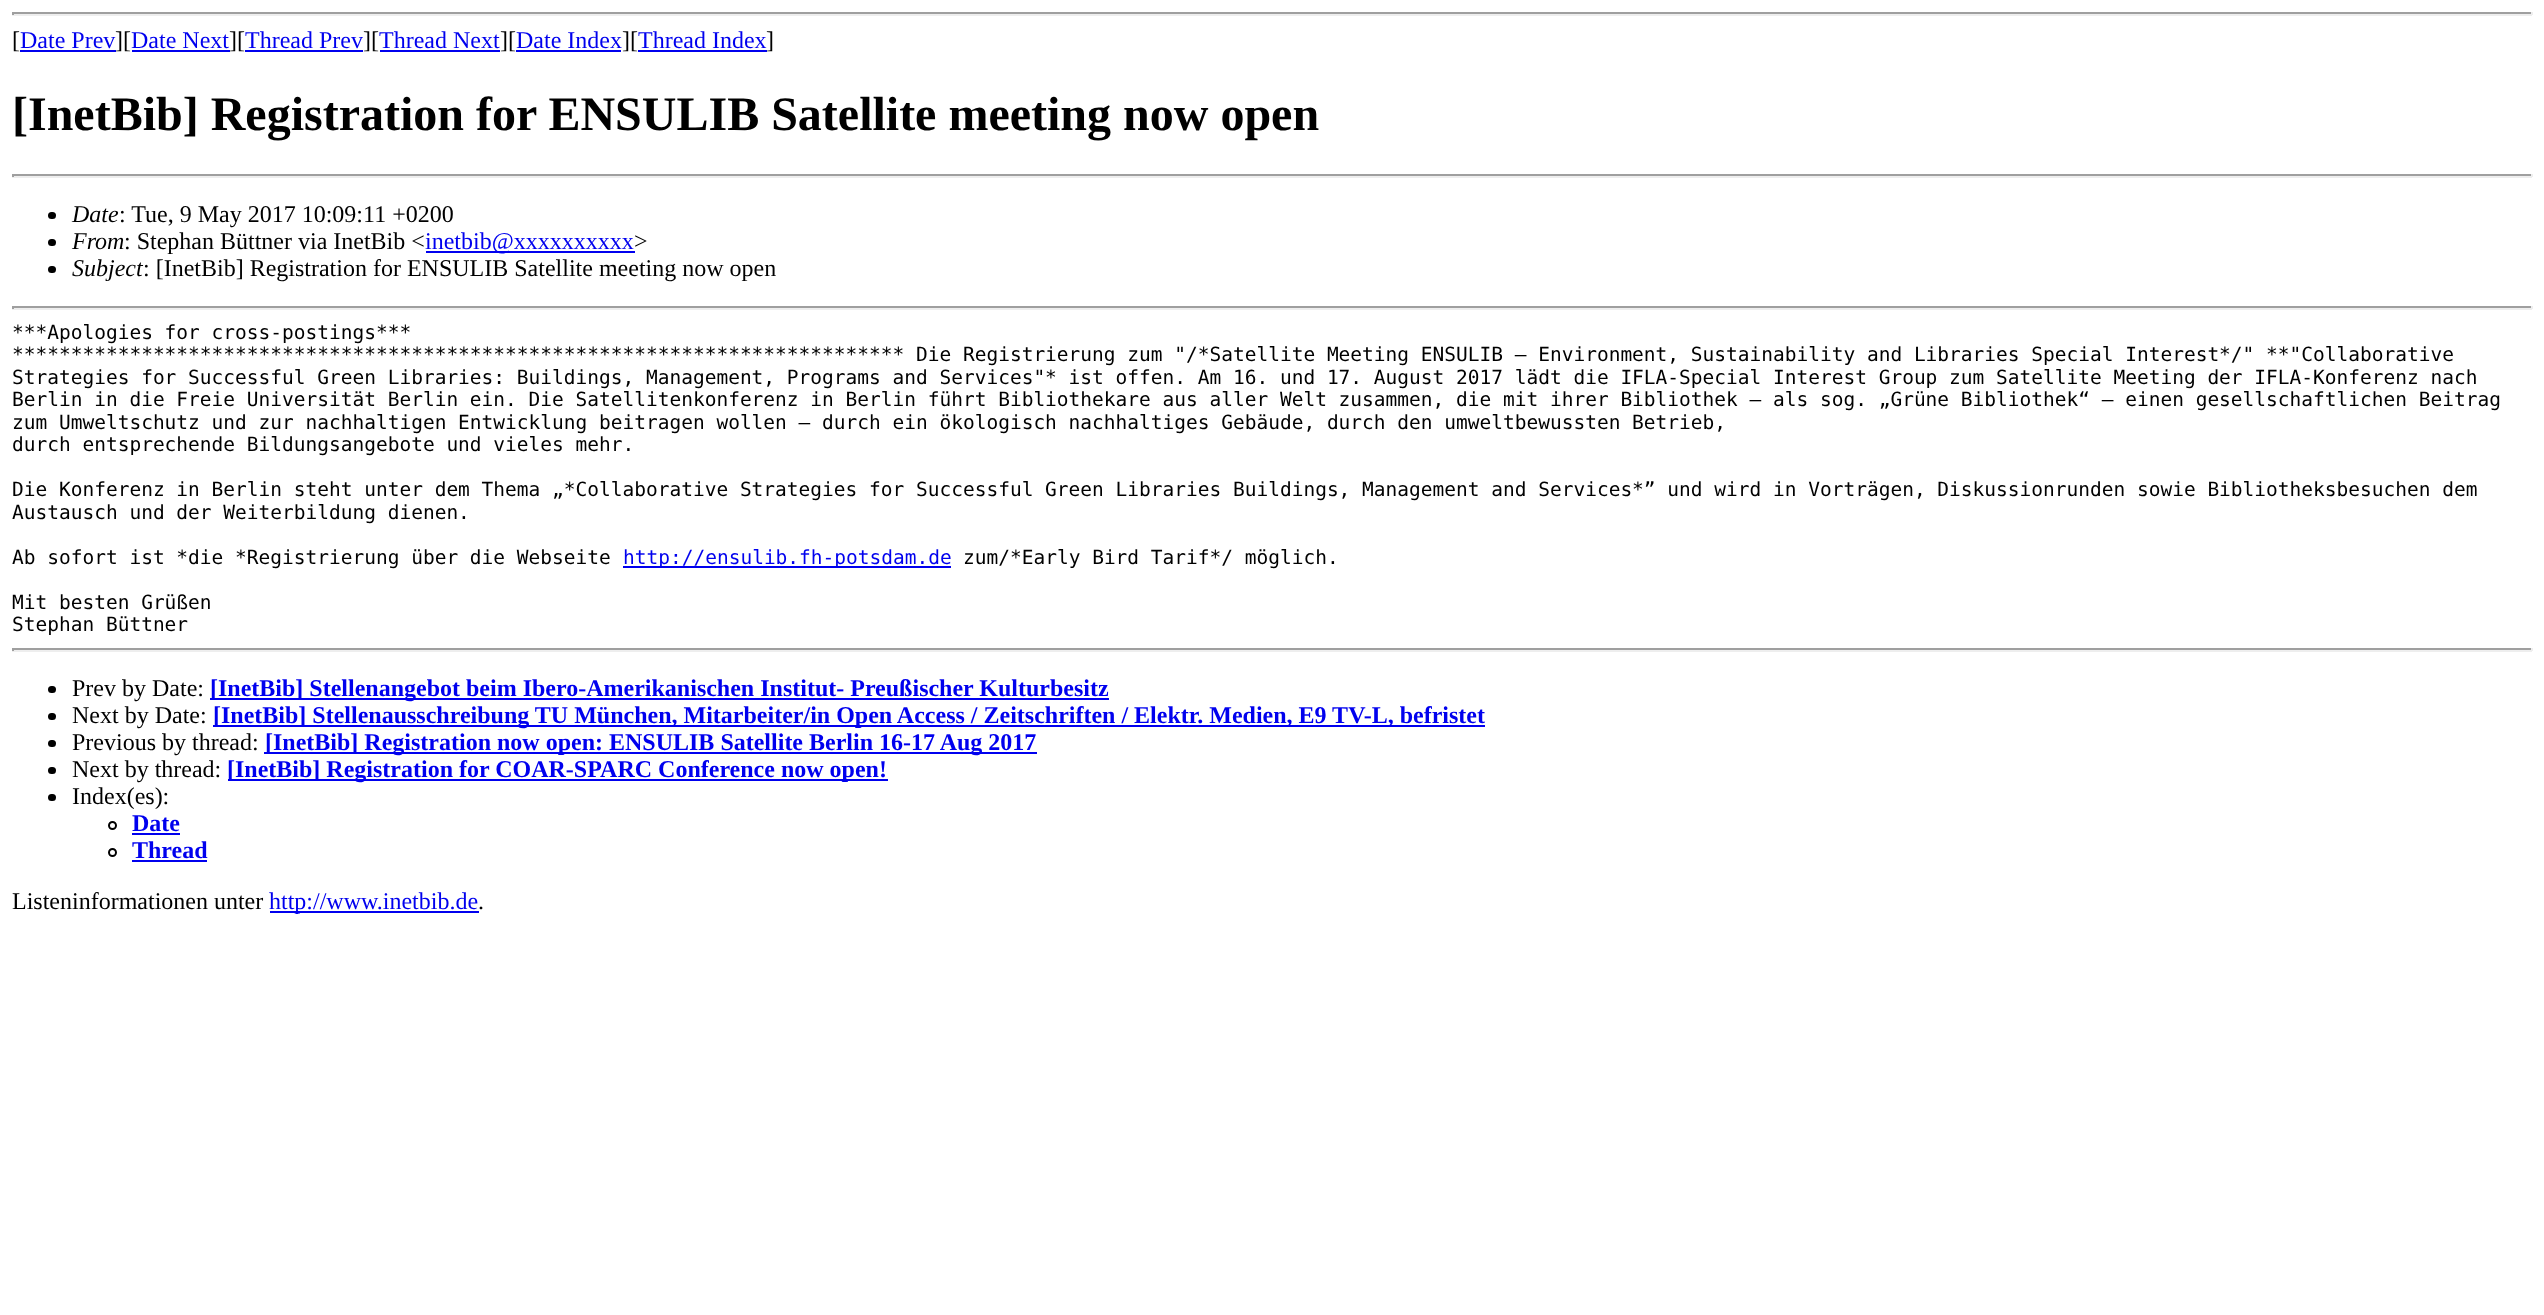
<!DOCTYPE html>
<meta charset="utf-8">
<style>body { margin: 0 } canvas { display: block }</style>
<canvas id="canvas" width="2544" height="1315"></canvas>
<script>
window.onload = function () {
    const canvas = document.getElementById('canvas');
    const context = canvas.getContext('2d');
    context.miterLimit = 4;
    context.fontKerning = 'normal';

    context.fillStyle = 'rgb(255, 255, 255)';
    context.fillRect(0, 0, 2544, 1315);
    context.fillStyle = 'rgb(159, 159, 159)';
    context.fillRect(12, 12, 2520, 2);
    context.fillStyle = 'rgb(238, 238, 238)';
    context.fillRect(2531, 12, 2, 3);
    context.fillRect(12, 14, 2520, 2);
    context.fillStyle = 'rgb(159, 159, 159)';
    context.fillRect(12, 12, 2, 3);
    context.fillStyle = 'rgb(0, 0, 238)';
    context.fillRect(20, 50, 96, 2);
    context.fillRect(132, 50, 98, 2);
    context.fillRect(245, 50, 118, 2);
    context.fillRect(380, 50, 120, 2);
    context.fillRect(516, 50, 105, 2);
    context.fillRect(638, 50, 129, 2);
    context.fillStyle = 'rgb(159, 159, 159)';
    context.fillRect(12, 174, 2520, 2);
    context.fillStyle = 'rgb(238, 238, 238)';
    context.fillRect(2531, 174, 2, 3);
    context.fillRect(12, 176, 2520, 2);
    context.fillStyle = 'rgb(159, 159, 159)';
    context.fillRect(12, 174, 2, 3);
    context.fillStyle = 'rgb(0, 0, 0)';
    context.beginPath();
    context.roundRect(48, 212, 8, 7, 3.5);
    context.fill();
    context.beginPath();
    context.roundRect(48, 239, 8, 7, 3.5);
    context.fill();
    context.fillStyle = 'rgb(0, 0, 238)';
    context.fillRect(426, 251, 209, 2);
    context.fillStyle = 'rgb(0, 0, 0)';
    context.beginPath();
    context.roundRect(48, 266, 8, 7, 3.5);
    context.fill();
    context.fillStyle = 'rgb(159, 159, 159)';
    context.fillRect(12, 306, 2520, 2);
    context.fillStyle = 'rgb(238, 238, 238)';
    context.fillRect(2531, 306, 2, 3);
    context.fillRect(12, 308, 2520, 2);
    context.fillStyle = 'rgb(159, 159, 159)';
    context.fillRect(12, 306, 2, 3);
    context.fillStyle = 'rgb(0, 0, 238)';
    context.fillRect(623, 566, 328, 2);
    context.fillStyle = 'rgb(159, 159, 159)';
    context.fillRect(12, 648, 2520, 2);
    context.fillStyle = 'rgb(238, 238, 238)';
    context.fillRect(2531, 648, 2, 3);
    context.fillRect(12, 650, 2520, 2);
    context.fillStyle = 'rgb(159, 159, 159)';
    context.fillRect(12, 648, 2, 3);
    context.fillStyle = 'rgb(0, 0, 0)';
    context.beginPath();
    context.roundRect(48, 686, 8, 7, 3.5);
    context.fill();
    context.fillStyle = 'rgb(0, 0, 238)';
    context.fillRect(210, 698, 899, 2);
    context.fillStyle = 'rgb(0, 0, 0)';
    context.beginPath();
    context.roundRect(48, 713, 8, 7, 3.5);
    context.fill();
    context.fillStyle = 'rgb(0, 0, 238)';
    context.fillRect(213, 725, 1272, 2);
    context.fillStyle = 'rgb(0, 0, 0)';
    context.beginPath();
    context.roundRect(48, 740, 8, 7, 3.5);
    context.fill();
    context.fillStyle = 'rgb(0, 0, 238)';
    context.fillRect(264, 752, 773, 2);
    context.fillStyle = 'rgb(0, 0, 0)';
    context.beginPath();
    context.roundRect(48, 767, 8, 7, 3.5);
    context.fill();
    context.fillStyle = 'rgb(0, 0, 238)';
    context.fillRect(228, 779, 660, 2);
    context.fillStyle = 'rgb(0, 0, 0)';
    context.beginPath();
    context.roundRect(48, 794, 8, 7, 3.5);
    context.fill();
    context.beginPath();
    context.arc(112.5, 825.5, 3.5, 0, 2 * Math.PI);
    context.strokeStyle = 'rgb(0, 0, 0)';
    context.lineWidth = 2;
    context.stroke();
    context.fillStyle = 'rgb(0, 0, 238)';
    context.fillRect(132, 833, 48, 2);
    context.beginPath();
    context.arc(112.5, 852.5, 3.5, 0, 2 * Math.PI);
    context.stroke();
    context.fillRect(132, 860, 75, 2);
    context.fillRect(270, 911, 209, 2);
    context.font = '24px Liberation Serif';
    context.fillStyle = 'rgb(0, 0, 0)';
    context.fillText('[', 12, 48);
    context.fillStyle = 'rgb(0, 0, 238)';
    context.fillText('Date Prev', 20, 48);
    context.fillStyle = 'rgb(0, 0, 0)';
    context.fillText('][', 115, 48);
    context.fillStyle = 'rgb(0, 0, 238)';
    context.fillText('Date Next', 131, 48);
    context.fillStyle = 'rgb(0, 0, 0)';
    context.fillText('][', 229, 48);
    context.fillStyle = 'rgb(0, 0, 238)';
    context.fillText('Thread Prev', 245, 48);
    context.fillStyle = 'rgb(0, 0, 0)';
    context.fillText('][', 363, 48);
    context.fillStyle = 'rgb(0, 0, 238)';
    context.fillText('Thread Next', 379, 48);
    context.fillStyle = 'rgb(0, 0, 0)';
    context.fillText('][', 500, 48);
    context.fillStyle = 'rgb(0, 0, 238)';
    context.fillText('Date Index', 516, 48);
    context.fillStyle = 'rgb(0, 0, 0)';
    context.fillText('][', 622, 48);
    context.fillStyle = 'rgb(0, 0, 238)';
    context.fillText('Thread Index', 638, 48);
    context.fillStyle = 'rgb(0, 0, 0)';
    context.fillText(']', 766, 48);
    context.font = 'bold 48px Liberation Serif';
    context.fillText('[InetBib] Registration for ENSULIB Satellite meeting now open', 12, 130);
    context.font = 'italic 24px Liberation Serif';
    context.fillText('Date', 72, 222);
    context.font = '24px Liberation Serif';
    context.fillText(': Tue, 9 May 2017 10:09:11 +0200', 119, 222);
    context.font = 'italic 24px Liberation Serif';
    context.fillText('From', 72, 249);
    context.font = '24px Liberation Serif';
    context.fillText(': Stephan Büttner via InetBib <', 124, 249);
    context.fillStyle = 'rgb(0, 0, 238)';
    context.fillText('inetbib@xxxxxxxxxx', 425, 249);
    context.fillStyle = 'rgb(0, 0, 0)';
    context.fillText('>', 634, 249);
    context.font = 'italic 24px Liberation Serif';
    context.fillText('Subject', 72, 276);
    context.font = '24px Liberation Serif';
    context.fillText(': [InetBib] Registration for ENSULIB Satellite meeting now open', 143, 276);
    context.font = '19.5px DejaVu Sans Mono';
    context.fillText('***Apologies for cross-postings***', 12, 339);
    context.fillText('**************************************************************************** Die Registrierung zum "/*Satellite Meeting ENSULIB – Environment, Sustainability and Libraries Special Interest*/" **"Collaborative', 12, 361);
    context.fillText('Strategies for Successful Green Libraries: Buildings, Management, Programs and Services"* ist offen. Am 16. und 17. August 2017 lädt die IFLA-Special Interest Group zum Satellite Meeting der IFLA-Konferenz nach', 12, 384);
    context.fillText('Berlin in die Freie Universität Berlin ein. Die Satellitenkonferenz in Berlin führt Bibliothekare aus aller Welt zusammen, die mit ihrer Bibliothek – als sog. „Grüne Bibliothek“ – einen gesellschaftlichen Beitrag', 12, 406);
    context.fillText('zum Umweltschutz und zur nachhaltigen Entwicklung beitragen wollen – durch ein ökologisch nachhaltiges Gebäude, durch den umweltbewussten Betrieb,', 12, 429);
    context.fillText('durch entsprechende Bildungsangebote und vieles mehr.', 12, 451);
    context.fillText('Die Konferenz in Berlin steht unter dem Thema „*Collaborative Strategies for Successful Green Libraries Buildings, Management and Services*” und wird in Vorträgen, Diskussionrunden sowie Bibliotheksbesuchen dem', 12, 496);
    context.fillText('Austausch und der Weiterbildung dienen.', 12, 519);
    context.fillText('Ab sofort ist *die *Registrierung über die Webseite', 12, 564);
    context.fillStyle = 'rgb(0, 0, 238)';
    context.fillText('http://ensulib.fh-potsdam.de', 623, 564);
    context.fillStyle = 'rgb(0, 0, 0)';
    context.fillText('zum/*Early Bird Tarif*/ möglich.', 963, 564);
    context.fillText('Mit besten Grüßen', 12, 609);
    context.fillText('Stephan Büttner', 12, 631);
    context.font = '24px Liberation Serif';
    context.fillText('Prev by Date:', 72, 696);
    context.font = 'bold 24px Liberation Serif';
    context.fillStyle = 'rgb(0, 0, 238)';
    context.fillText('[InetBib] Stellenangebot beim Ibero-Amerikanischen Institut- Preußischer Kulturbesitz', 210, 696);
    context.font = '24px Liberation Serif';
    context.fillStyle = 'rgb(0, 0, 0)';
    context.fillText('Next by Date:', 72, 723);
    context.font = 'bold 24px Liberation Serif';
    context.fillStyle = 'rgb(0, 0, 238)';
    context.fillText('[InetBib] Stellenausschreibung TU München, Mitarbeiter/in Open Access / Zeitschriften / Elektr. Medien, E9 TV-L, befristet', 213, 723);
    context.font = '24px Liberation Serif';
    context.fillStyle = 'rgb(0, 0, 0)';
    context.fillText('Previous by thread:', 72, 750);
    context.font = 'bold 24px Liberation Serif';
    context.fillStyle = 'rgb(0, 0, 238)';
    context.fillText('[InetBib] Registration now open: ENSULIB Satellite Berlin 16-17 Aug 2017', 265, 750);
    context.font = '24px Liberation Serif';
    context.fillStyle = 'rgb(0, 0, 0)';
    context.fillText('Next by thread:', 72, 777);
    context.font = 'bold 24px Liberation Serif';
    context.fillStyle = 'rgb(0, 0, 238)';
    context.fillText('[InetBib] Registration for COAR-SPARC Conference now open!', 227, 777);
    context.font = '24px Liberation Serif';
    context.fillStyle = 'rgb(0, 0, 0)';
    context.fillText('Index(es):', 72, 804);
    context.font = 'bold 24px Liberation Serif';
    context.fillStyle = 'rgb(0, 0, 238)';
    context.fillText('Date', 132, 831);
    context.fillText('Thread', 132, 858);
    context.font = '24px Liberation Serif';
    context.fillStyle = 'rgb(0, 0, 0)';
    context.fillText('Listeninformationen unter', 12, 909);
    context.fillStyle = 'rgb(0, 0, 238)';
    context.fillText('http://www.inetbib.de', 269, 909);
    context.fillStyle = 'rgb(0, 0, 0)';
    context.fillText('.', 478, 909);
};
</script>
